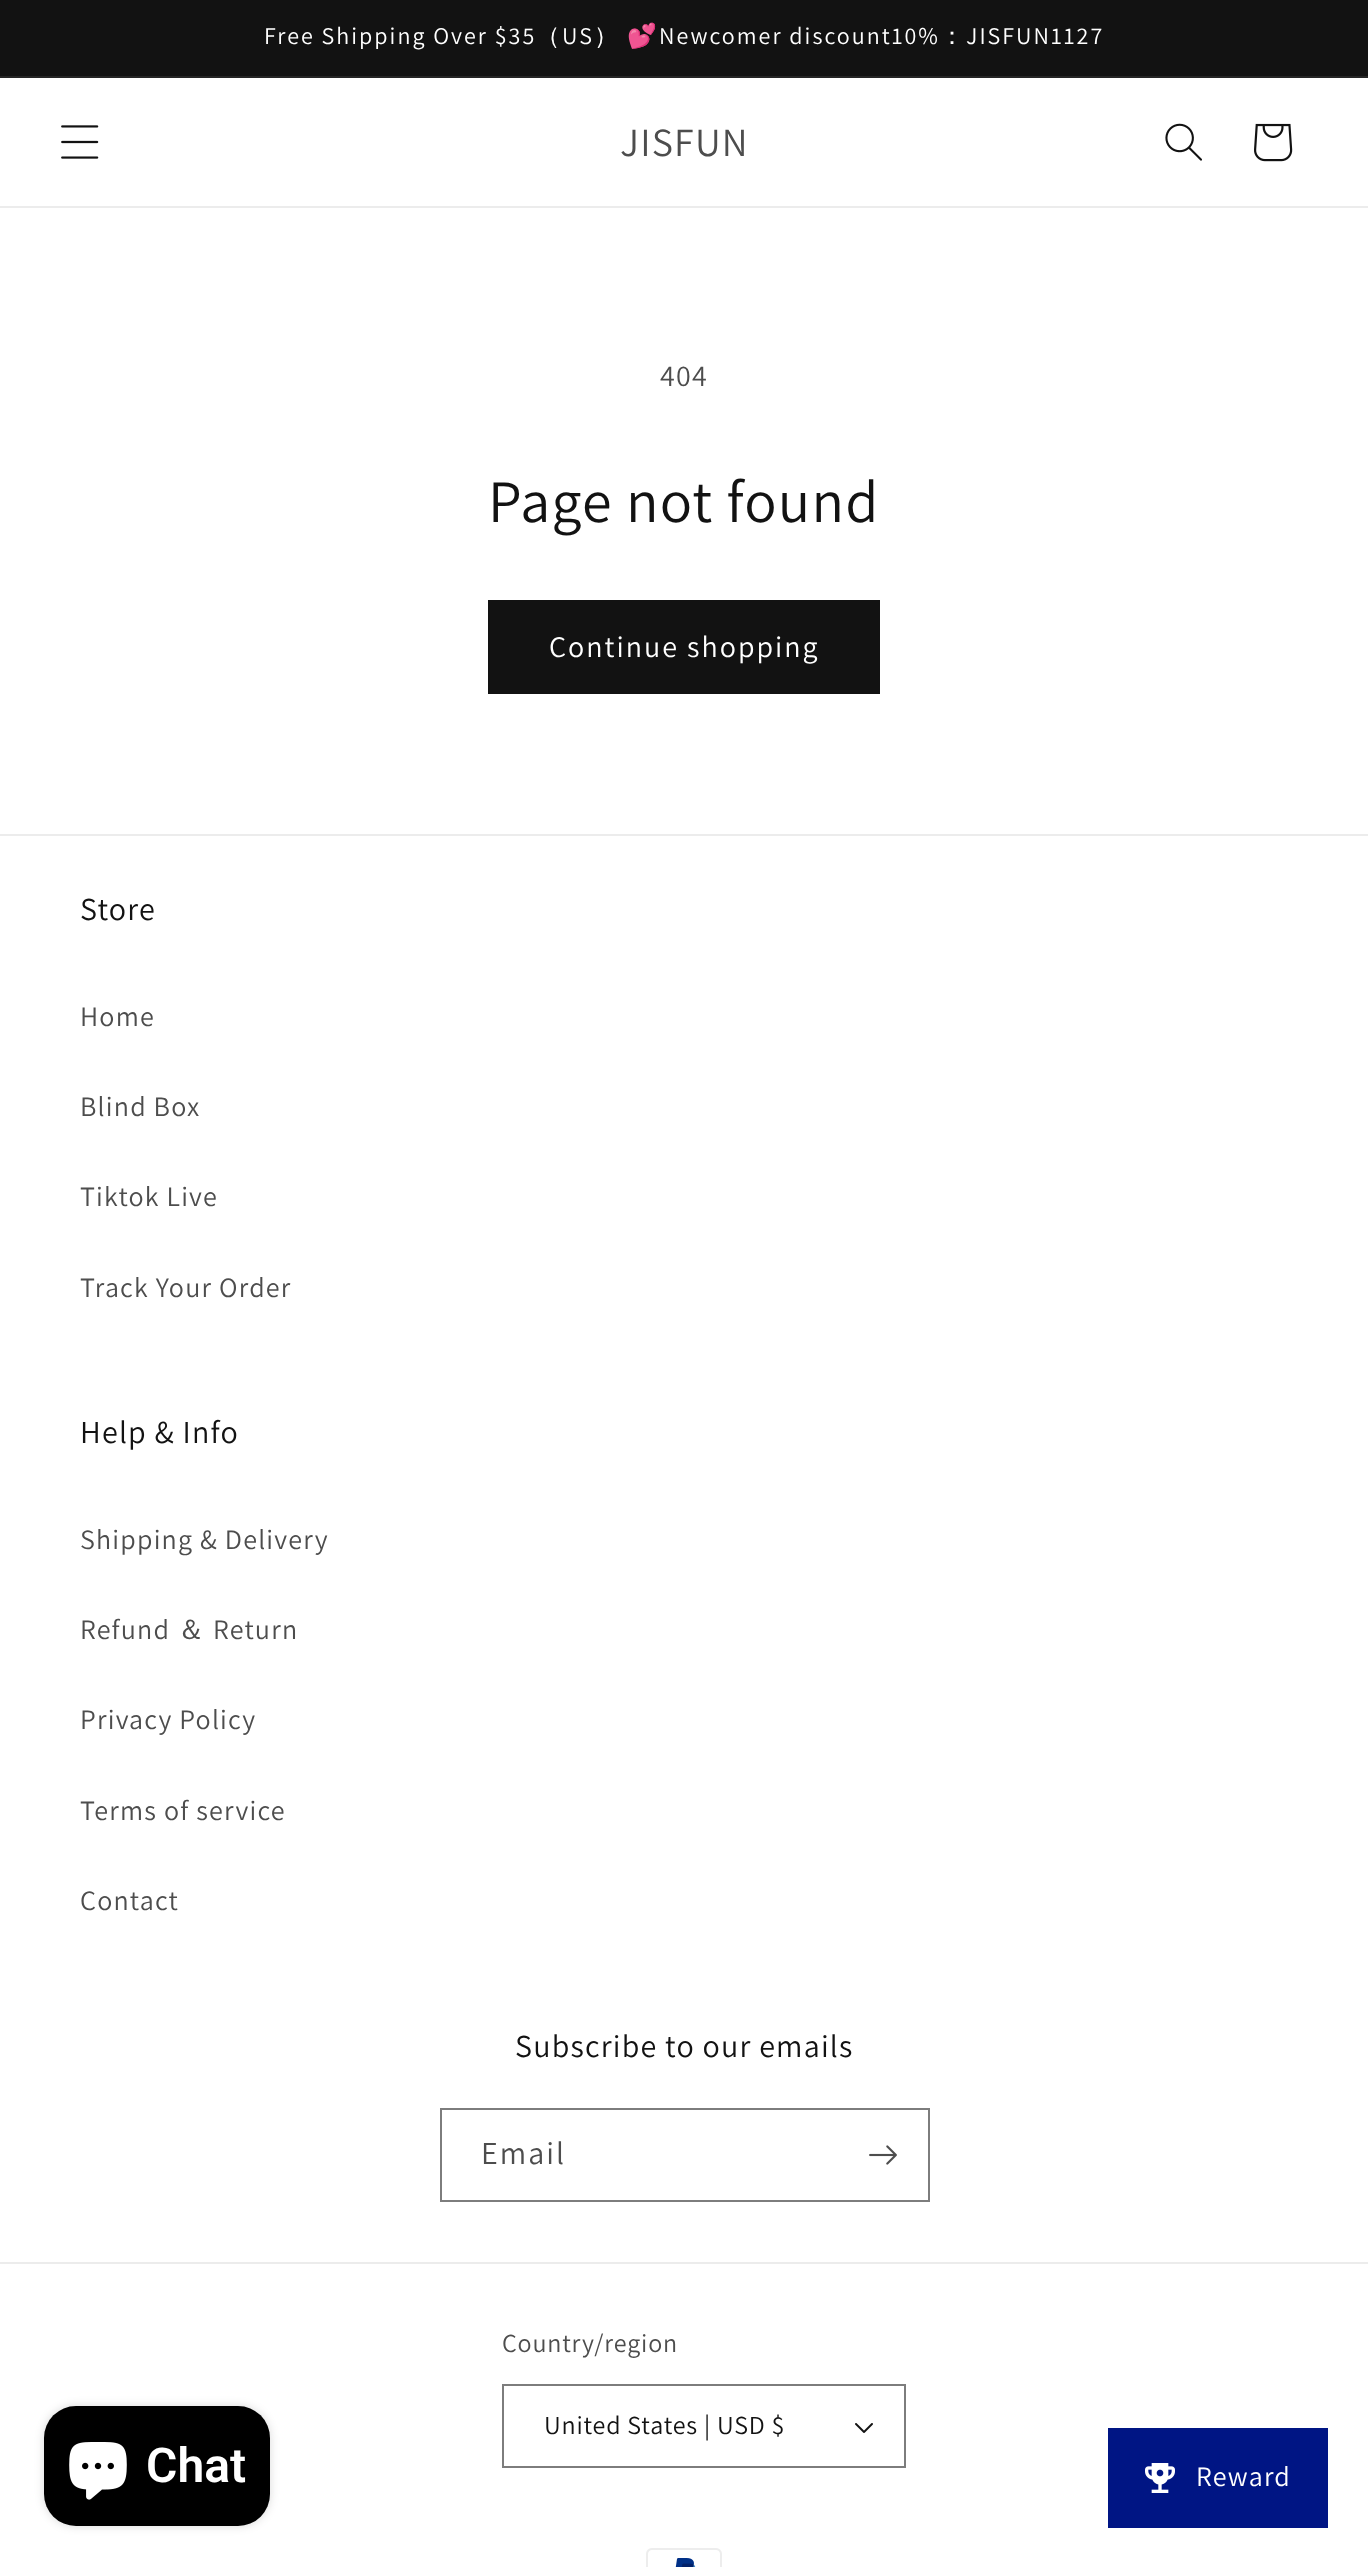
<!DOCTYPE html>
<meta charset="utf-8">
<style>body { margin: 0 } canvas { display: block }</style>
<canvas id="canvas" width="1368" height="2567"></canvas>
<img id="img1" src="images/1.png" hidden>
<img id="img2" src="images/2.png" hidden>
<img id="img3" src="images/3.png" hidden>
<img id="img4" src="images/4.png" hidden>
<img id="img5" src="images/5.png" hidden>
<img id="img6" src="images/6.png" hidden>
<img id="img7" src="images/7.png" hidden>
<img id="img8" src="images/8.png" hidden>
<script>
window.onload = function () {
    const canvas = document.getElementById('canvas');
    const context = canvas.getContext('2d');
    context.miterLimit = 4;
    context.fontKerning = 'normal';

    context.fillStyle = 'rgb(255, 255, 255)';
    context.fillRect(0, 0, 1368, 2567);
    context.fillStyle = 'rgb(18, 18, 18)';
    context.fillRect(0, 0, 1368, 76);
    context.fillStyle = 'rgb(37, 37, 37)';
    context.fillRect(0, 76, 1368, 2);
    context.fillStyle = 'rgb(236, 236, 236)';
    context.fillRect(0, 206, 1368, 2);
    context.drawImage(document.getElementById('img1'), 61, 125, 38, 34);
    context.drawImage(document.getElementById('img2'), 1165, 123, 37, 38);
    context.drawImage(document.getElementById('img3'), 1254, 123, 39, 39);
    context.fillStyle = 'rgb(18, 18, 18)';
    context.fillRect(488, 600, 392, 94);
    context.fillStyle = 'rgb(236, 236, 236)';
    context.fillRect(0, 834, 1368, 2);
    context.strokeStyle = 'rgb(125, 125, 125)';
    context.lineWidth = 2;
    context.strokeRect(441, 2109, 488, 92);
    context.drawImage(document.getElementById('img4'), 869, 2145, 28, 20);
    context.fillRect(0, 2262, 1368, 2);
    context.drawImage(document.getElementById('img5'), 855, 2423, 18, 10);
    context.strokeRect(503, 2385, 402, 82);
    context.drawImage(document.getElementById('img6'), 646, 2548, 76, 19);
    context.fillStyle = 'rgba(0, 0, 0, 0.15)';
    context.filter = 'blur(5px)';
    context.beginPath();
    context.roundRect(44, 2406, 226, 120, 32);
    context.fill();
    context.filter = 'none';
    context.fillStyle = 'rgb(0, 0, 0)';
    context.beginPath();
    context.roundRect(44, 2406, 226, 120, 32);
    context.fill();
    context.drawImage(document.getElementById('img7'), 69, 2442, 58, 58);
    context.fillStyle = 'rgb(0, 21, 132)';
    context.fillRect(1108, 2428, 220, 100);
    context.drawImage(document.getElementById('img8'), 1145, 2463, 30, 30);
    context.letterSpacing = '2px';
    context.font = '24px Assistant';
    context.fillStyle = 'rgb(255, 255, 255)';
    context.fillText('Free Shipping Over $35', 264, 44);
    context.font = '500 24px WenQuanYi Zen Hei';
    context.fillText('（', 536, 44);
    context.font = '24px Assistant';
    context.fillText('US', 562, 44);
    context.font = '500 24px WenQuanYi Zen Hei';
    context.fillText('）', 594, 44);
    context.font = '24px Noto Color Emoji';
    context.fillText('💕', 627, 44);
    context.font = '24px Assistant';
    context.fillText('Newcomer discount10%', 659, 44);
    context.font = '500 24px WenQuanYi Zen Hei';
    context.fillText('：', 940, 44);
    context.font = '24px Assistant';
    context.fillText('JISFUN1127', 966, 44);
    context.letterSpacing = '1.2px';
    context.font = '40px Assistant';
    context.fillStyle = 'rgb(77, 77, 77)';
    context.fillText('JISFUN', 620, 156);
    context.font = '30px Assistant';
    context.fillText('404', 660, 386);
    context.font = '60px Assistant';
    context.fillStyle = 'rgb(18, 18, 18)';
    context.fillText('Page not found', 488, 522);
    context.letterSpacing = '2px';
    context.font = '30px Assistant';
    context.fillStyle = 'rgb(255, 255, 255)';
    context.fillText('Continue shopping', 549, 657);
    context.letterSpacing = '1.2px';
    context.font = '32px Assistant';
    context.fillStyle = 'rgb(18, 18, 18)';
    context.fillText('Store', 80, 920);
    context.font = '28px Assistant';
    context.fillStyle = 'rgb(77, 77, 77)';
    context.fillText('Home', 80, 1026);
    context.fillText('Blind Box', 80, 1116);
    context.fillText('Tiktok Live', 80, 1206);
    context.fillText('Track Your Order', 80, 1297);
    context.font = '32px Assistant';
    context.fillStyle = 'rgb(18, 18, 18)';
    context.fillText('Help & Info', 80, 1443);
    context.font = '28px Assistant';
    context.fillStyle = 'rgb(77, 77, 77)';
    context.fillText('Shipping & Delivery', 80, 1549);
    context.fillText('Refund', 80, 1639);
    context.font = '500 28px WenQuanYi Zen Hei';
    context.fillText('＆', 177, 1639);
    context.font = '28px Assistant';
    context.fillText('Return', 213, 1639);
    context.fillText('Privacy Policy', 80, 1729);
    context.fillText('Terms of service', 80, 1820);
    context.fillText('Contact', 80, 1910);
    context.font = '32px Assistant';
    context.fillStyle = 'rgb(18, 18, 18)';
    context.fillText('Subscribe to our emails', 515, 2057);
    context.letterSpacing = '2px';
    context.fillStyle = 'rgb(77, 77, 77)';
    context.fillText('Email', 481, 2164);
    context.letterSpacing = '0.8px';
    context.font = '26px Assistant';
    context.fillText('Country/region', 502, 2352);
    context.fillStyle = 'rgb(18, 18, 18)';
    context.fillText('United States | USD $', 544, 2434);
    context.letterSpacing = '0px';
    context.font = '600 48px Roboto';
    context.fillStyle = 'rgb(255, 255, 255)';
    context.fillText('Chat', 146, 2482);
    context.letterSpacing = '1.2px';
    context.font = '28px Assistant';
    context.fillText('Reward', 1196, 2486);
};
</script>
